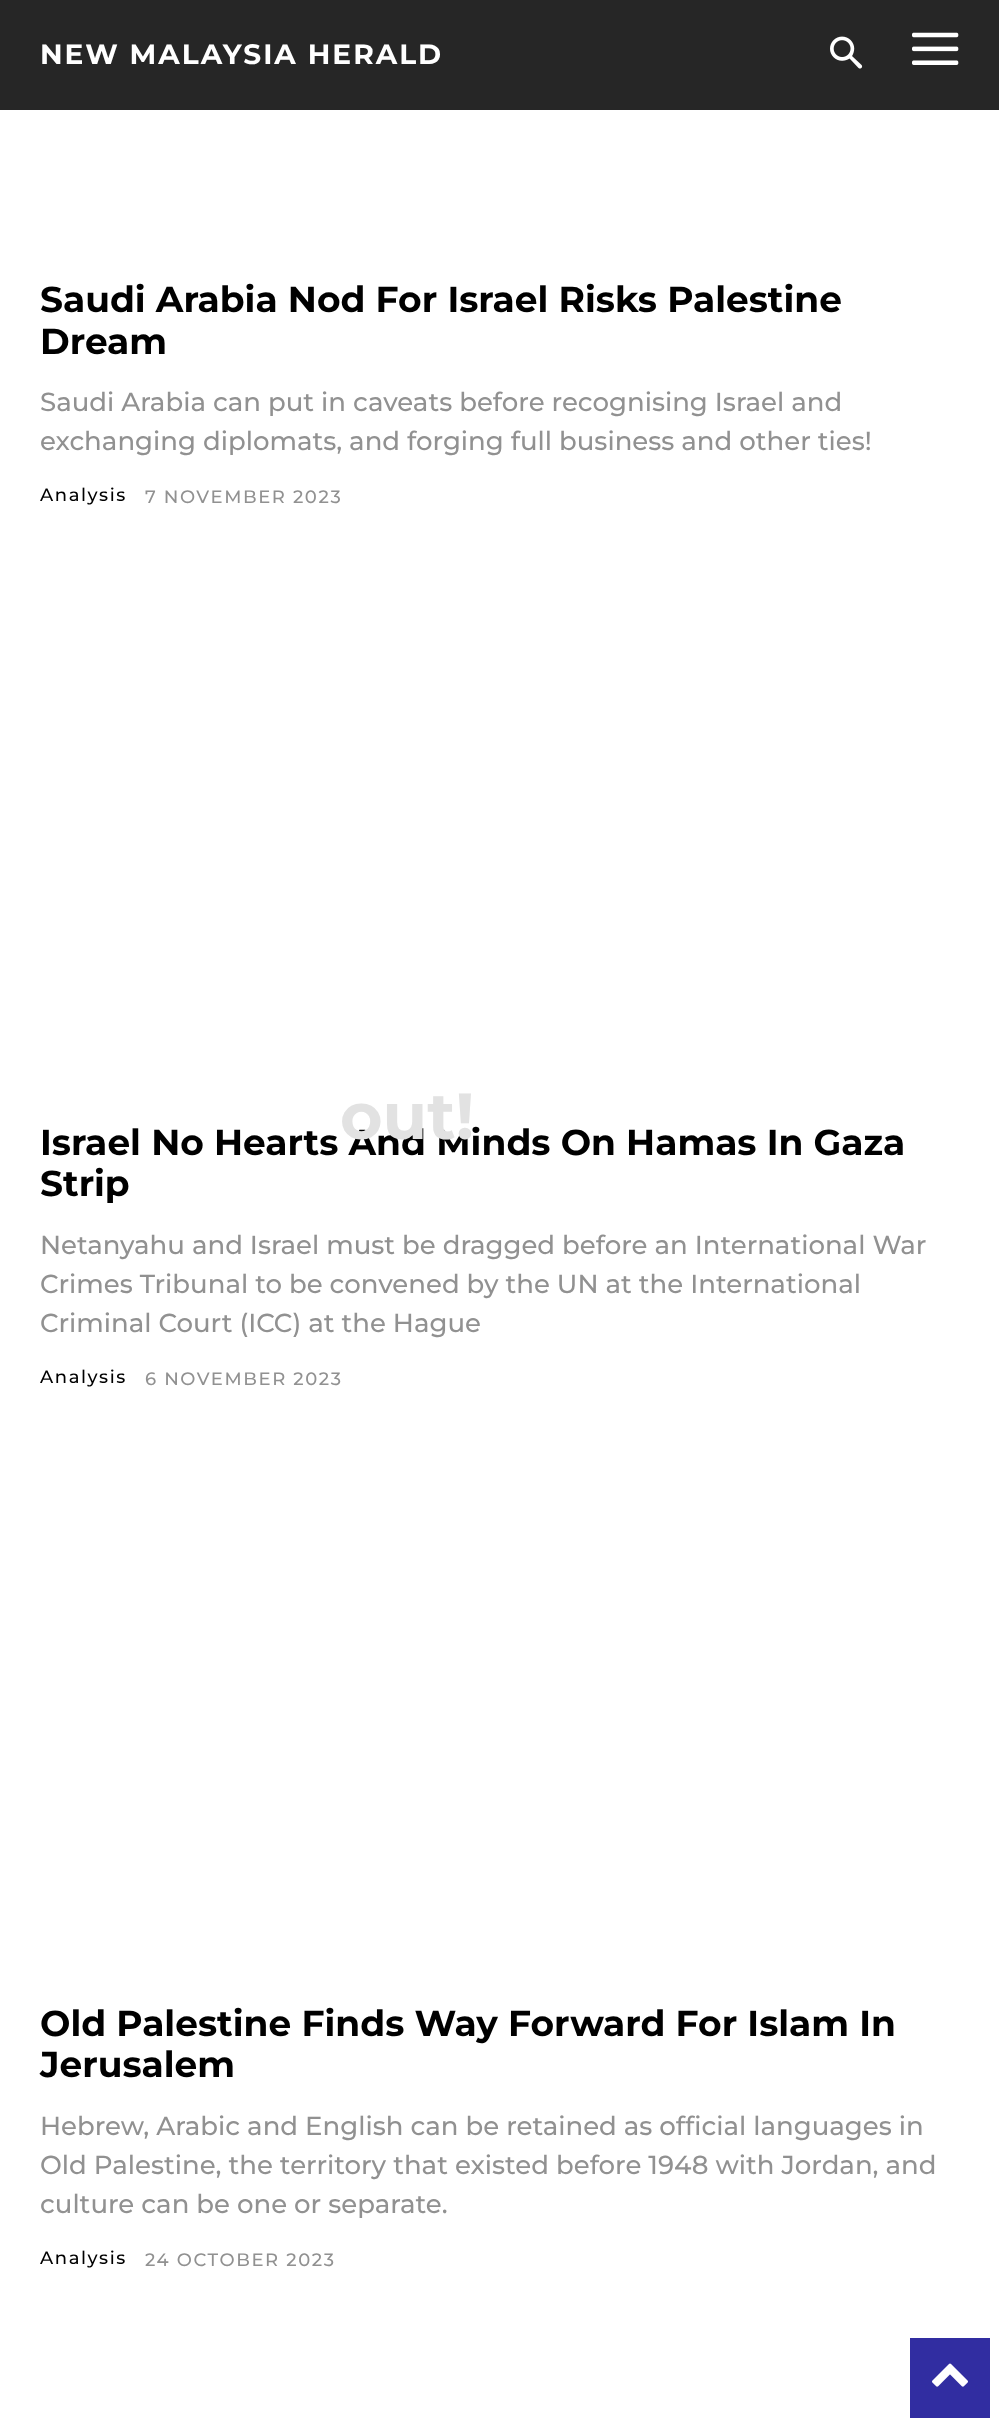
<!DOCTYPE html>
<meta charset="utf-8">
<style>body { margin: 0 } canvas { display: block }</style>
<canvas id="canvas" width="999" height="2425"></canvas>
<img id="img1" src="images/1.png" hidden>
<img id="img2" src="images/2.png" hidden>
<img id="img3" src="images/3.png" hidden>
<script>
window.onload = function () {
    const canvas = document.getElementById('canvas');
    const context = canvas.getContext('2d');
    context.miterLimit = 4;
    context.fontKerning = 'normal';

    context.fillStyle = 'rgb(255, 255, 255)';
    context.fillRect(0, 0, 999, 2425);
    context.fillStyle = 'rgb(38, 38, 38)';
    context.fillRect(0, 0, 999, 110);
    context.drawImage(document.getElementById('img1'), 830, 36, 33, 33);
    context.drawImage(document.getElementById('img2'), 912, 32, 47, 33);
    context.fillStyle = 'rgb(49, 45, 161)';
    context.fillRect(910, 2338, 80, 80);
    context.drawImage(document.getElementById('img3'), 932, 2363, 36, 24);
    context.letterSpacing = '2px';
    context.font = 'bold 28px Montserrat';
    context.fillStyle = 'rgb(255, 255, 255)';
    context.fillText('NEW MALAYSIA HERALD', 40, 64);
    context.letterSpacing = '0px';
    context.font = 'bold 36px Montserrat';
    context.fillStyle = 'rgb(0, 0, 0)';
    context.fillText('Saudi Arabia Nod For Israel Risks Palestine', 40, 312);
    context.fillText('Dream', 40, 354);
    context.font = '500 26px Montserrat';
    context.fillStyle = 'rgb(145, 145, 145)';
    context.fillText('Saudi Arabia can put in caveats before recognising Israel and', 40, 411);
    context.fillText('exchanging diplomats, and forging full business and other ties!', 40, 450);
    context.letterSpacing = '1.6px';
    context.font = '500 18px Montserrat';
    context.fillStyle = 'rgb(0, 0, 0)';
    context.fillText('Analysis', 40, 501);
    context.fillStyle = 'rgb(145, 145, 145)';
    context.fillText('7 NOVEMBER 2023', 145, 503);
    context.letterSpacing = '0px';
    context.font = 'bold 36px Montserrat';
    context.fillStyle = 'rgb(0, 0, 0)';
    context.fillText('Israel No Hearts And Minds On Hamas In Gaza', 40, 1155);
    context.fillText('Strip', 40, 1196);
    context.font = '500 26px Montserrat';
    context.fillStyle = 'rgb(145, 145, 145)';
    context.fillText('Netanyahu and Israel must be dragged before an International War', 40, 1254);
    context.fillText('Crimes Tribunal to be convened by the UN at the International', 40, 1293);
    context.fillText('Criminal Court (ICC) at the Hague', 40, 1332);
    context.letterSpacing = '1.6px';
    context.font = '500 18px Montserrat';
    context.fillStyle = 'rgb(0, 0, 0)';
    context.fillText('Analysis', 40, 1383);
    context.fillStyle = 'rgb(145, 145, 145)';
    context.fillText('6 NOVEMBER 2023', 145, 1385);
    context.letterSpacing = '0px';
    context.font = 'bold 36px Montserrat';
    context.fillStyle = 'rgb(0, 0, 0)';
    context.fillText('Old Palestine Finds Way Forward For Islam In', 40, 2036);
    context.fillText('Jerusalem', 40, 2077);
    context.font = '500 26px Montserrat';
    context.fillStyle = 'rgb(145, 145, 145)';
    context.fillText('Hebrew, Arabic and English can be retained as official languages in', 40, 2135);
    context.fillText('Old Palestine, the territory that existed before 1948 with Jordan, and', 40, 2174);
    context.fillText('culture can be one or separate.', 40, 2213);
    context.letterSpacing = '1.6px';
    context.font = '500 18px Montserrat';
    context.fillStyle = 'rgb(0, 0, 0)';
    context.fillText('Analysis', 40, 2264);
    context.fillStyle = 'rgb(145, 145, 145)';
    context.fillText('24 OCTOBER 2023', 145, 2266);
    context.letterSpacing = '0px';
    context.font = 'bold 65px Montserrat';
    context.fillStyle = 'rgb(226, 226, 226)';
    context.fillText('out!', 340, 1139);
};
</script>
